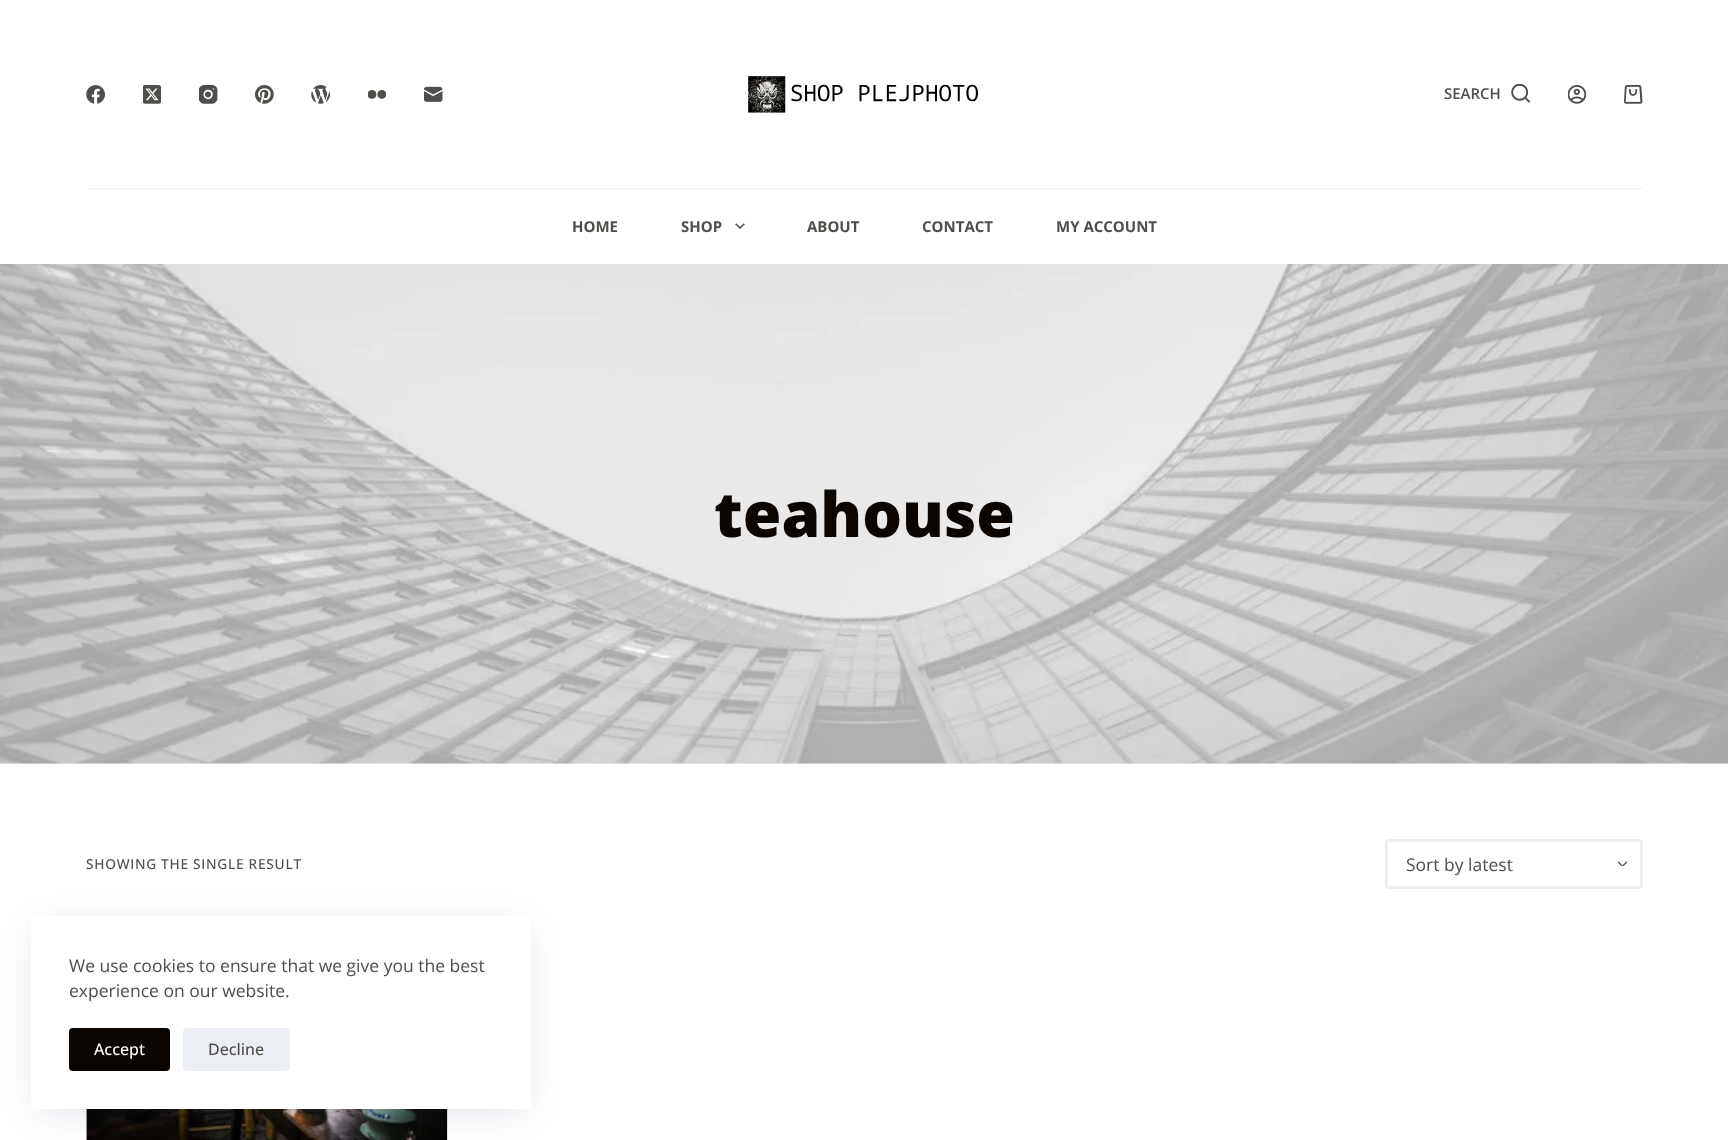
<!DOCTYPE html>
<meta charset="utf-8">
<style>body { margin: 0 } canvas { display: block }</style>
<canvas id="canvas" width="1728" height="1140"></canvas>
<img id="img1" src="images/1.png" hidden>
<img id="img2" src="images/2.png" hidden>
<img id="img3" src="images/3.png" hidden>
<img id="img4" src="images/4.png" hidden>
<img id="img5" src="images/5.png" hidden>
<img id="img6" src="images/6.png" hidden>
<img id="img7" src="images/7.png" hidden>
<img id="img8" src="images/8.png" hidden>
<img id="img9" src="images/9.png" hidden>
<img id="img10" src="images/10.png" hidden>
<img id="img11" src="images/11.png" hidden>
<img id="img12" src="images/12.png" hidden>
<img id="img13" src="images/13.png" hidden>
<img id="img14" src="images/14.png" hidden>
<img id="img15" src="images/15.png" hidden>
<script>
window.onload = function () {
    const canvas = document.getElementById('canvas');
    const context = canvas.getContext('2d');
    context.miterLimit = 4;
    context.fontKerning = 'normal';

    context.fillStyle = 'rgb(255, 255, 255)';
    context.fillRect(0, 0, 1728, 1140);
    context.drawImage(document.getElementById('img1'), 86, 85, 19, 19);
    context.drawImage(document.getElementById('img2'), 143, 85, 18, 19);
    context.drawImage(document.getElementById('img3'), 199, 85, 19, 19);
    context.drawImage(document.getElementById('img4'), 255, 85, 19, 19);
    context.drawImage(document.getElementById('img5'), 311, 85, 19, 19);
    context.drawImage(document.getElementById('img6'), 368, 90, 18, 9);
    context.drawImage(document.getElementById('img7'), 424, 86, 19, 16);
    context.drawImage(document.getElementById('img8'), 748, 76, 230, 37);
    context.drawImage(document.getElementById('img9'), 1511, 84, 19, 19);
    context.drawImage(document.getElementById('img10'), 1568, 85, 18, 19);
    context.drawImage(document.getElementById('img11'), 1624, 85, 19, 19);
    context.fillStyle = 'rgb(242, 241, 241)';
    context.fillRect(86, 188, 1557, 1);
    context.drawImage(document.getElementById('img12'), 735, 223, 10, 6);
    context.fillStyle = 'rgb(249, 250, 251)';
    context.fillRect(0, 763, 1728, 1);
    context.drawImage(document.getElementById('img13'), 0, 264, 1728, 500);
    context.drawImage(document.getElementById('img14'), 1618, 861, 10, 5);
    context.beginPath();
    context.roundRect(1386.5, 840.5, 255, 47, 2.5);
    context.strokeStyle = 'rgb(237, 239, 242)';
    context.lineWidth = 3;
    context.stroke();
    context.drawImage(document.getElementById('img15'), 86, 1109, 362, 31);
    context.fillStyle = 'rgba(34, 56, 101, 0.15)';
    context.filter = 'blur(19px)';
    context.beginPath();
    context.rect(38, 929, 487, 180);
    context.fill();
    context.filter = 'none';
    context.fillStyle = 'rgb(255, 255, 255)';
    context.beginPath();
    context.roundRect(31, 916, 500, 193, 4);
    context.fill();
    context.fillStyle = 'rgb(10, 5, 0)';
    context.beginPath();
    context.roundRect(69, 1028, 101, 43, 4);
    context.fill();
    context.fillStyle = 'rgb(236, 239, 243)';
    context.beginPath();
    context.roundRect(183, 1028, 107, 43, 4);
    context.fill();
    context.font = '600 15px Open Sans';
    context.fillStyle = 'rgb(80, 78, 74)';
    context.fillText('SEARCH', 1444, 99);
    context.font = 'bold 15px Open Sans';
    context.fillText('HOME', 572, 232);
    context.fillText('SHOP', 681, 232);
    context.fillText('ABOUT', 807, 232);
    context.fillText('CONTACT', 922, 232);
    context.fillText('MY ACCOUNT', 1056, 232);
    context.font = '800 62.5px Open Sans';
    context.fillStyle = 'rgb(10, 5, 0)';
    context.fillText('teahouse', 714, 537);
    context.letterSpacing = '0.7px';
    context.font = '500 13.75px Open Sans';
    context.fillStyle = 'rgb(80, 78, 74)';
    context.fillText('SHOWING THE SINGLE RESULT', 86, 869);
    context.letterSpacing = '0px';
    context.font = '17.5px Open Sans';
    context.fillText('Sort by latest', 1406, 871);
    context.fillText('We use cookies to ensure that we give you the best', 69, 972);
    context.fillText('experience on our website.', 69, 997);
    context.font = '500 16px Open Sans';
    context.fillStyle = 'rgb(255, 255, 255)';
    context.fillText('Accept', 94, 1055);
    context.fillStyle = 'rgb(80, 78, 74)';
    context.fillText('Decline', 208, 1055);
};
</script>
